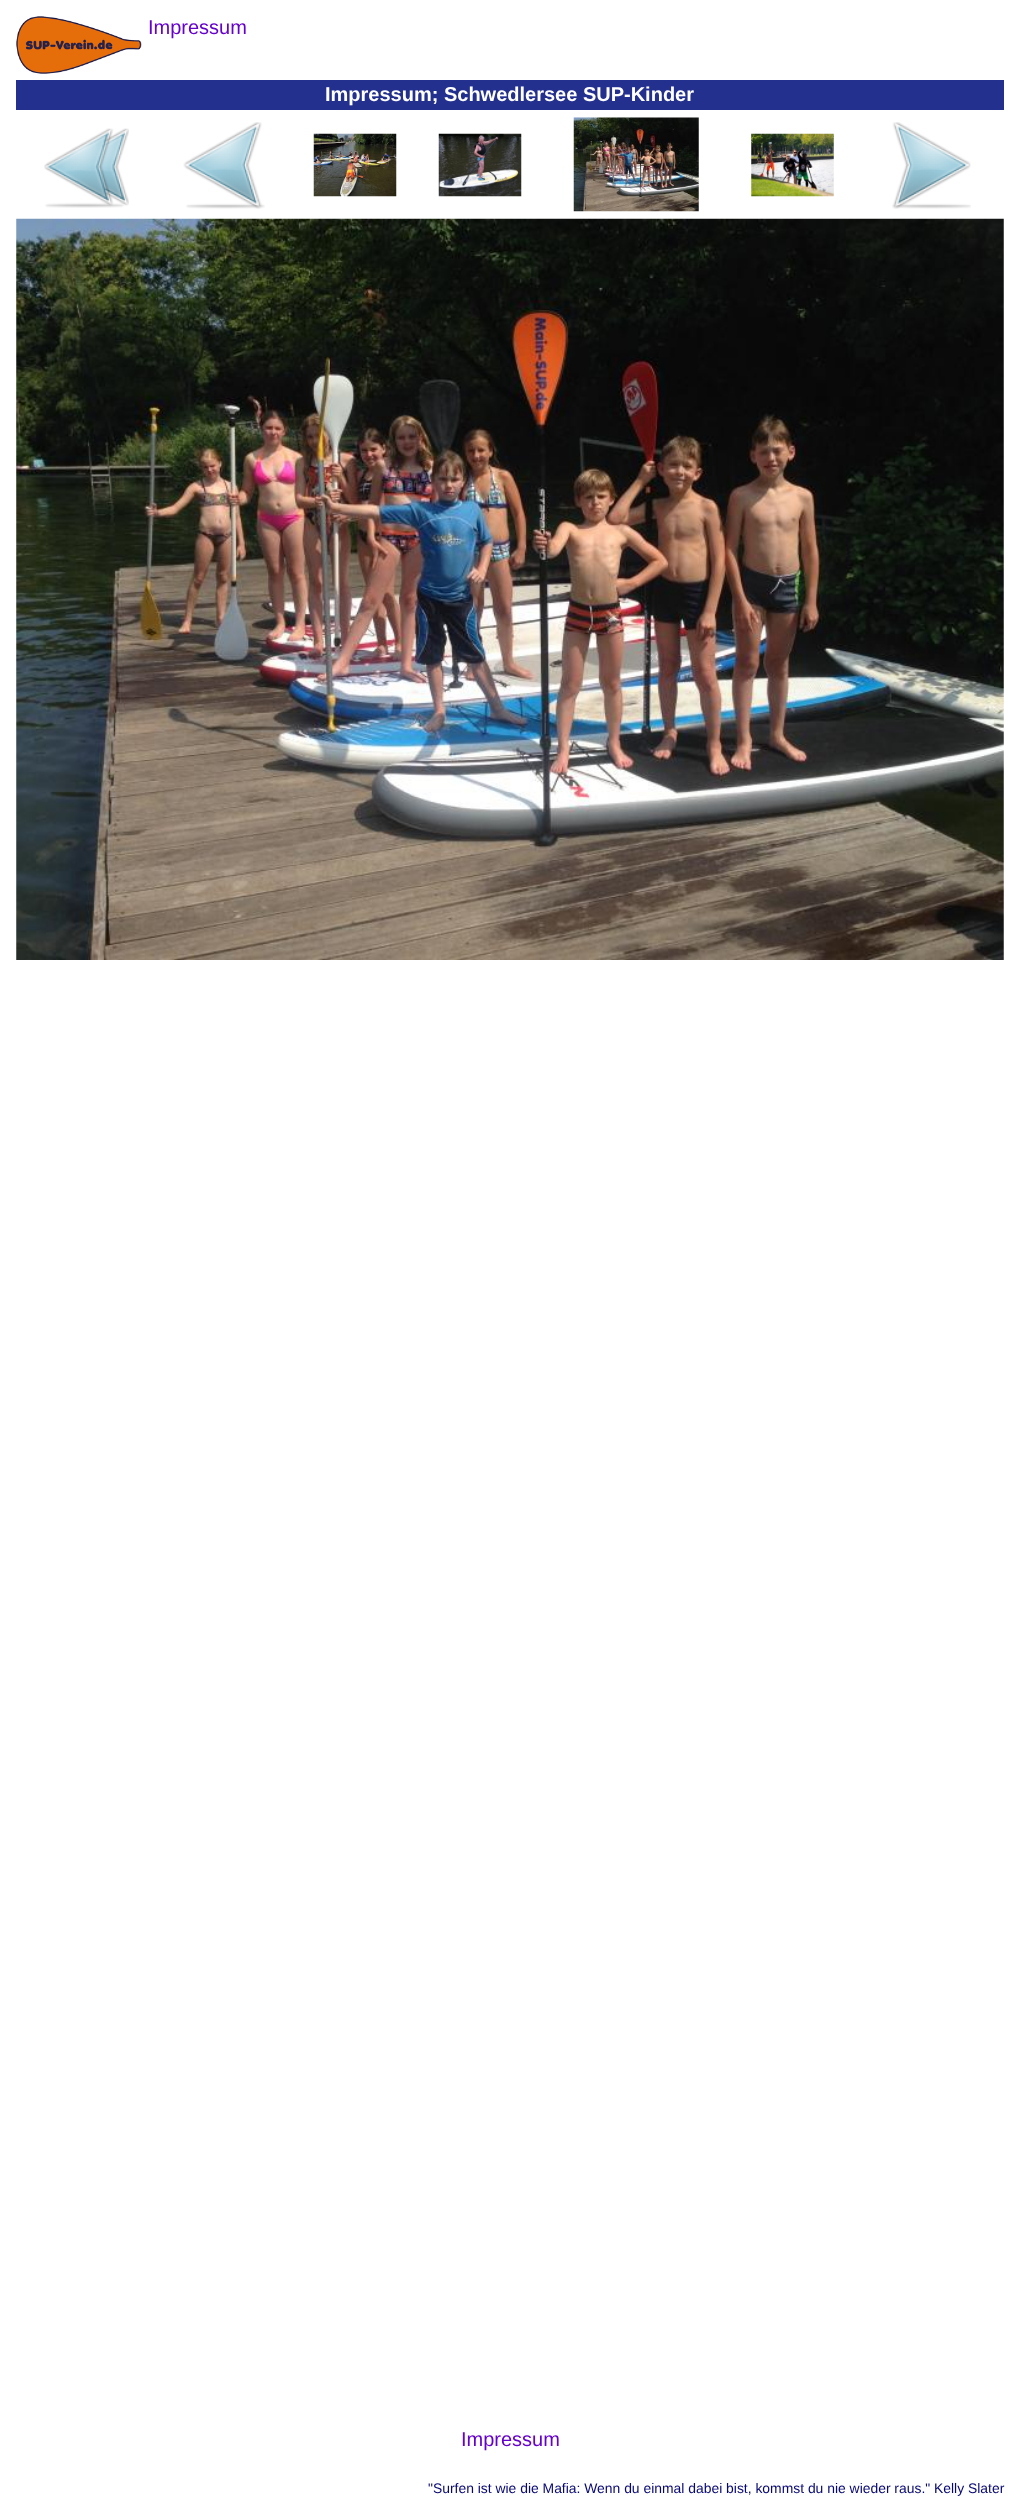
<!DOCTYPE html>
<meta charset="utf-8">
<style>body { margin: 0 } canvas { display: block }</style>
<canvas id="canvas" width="1019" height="2511"></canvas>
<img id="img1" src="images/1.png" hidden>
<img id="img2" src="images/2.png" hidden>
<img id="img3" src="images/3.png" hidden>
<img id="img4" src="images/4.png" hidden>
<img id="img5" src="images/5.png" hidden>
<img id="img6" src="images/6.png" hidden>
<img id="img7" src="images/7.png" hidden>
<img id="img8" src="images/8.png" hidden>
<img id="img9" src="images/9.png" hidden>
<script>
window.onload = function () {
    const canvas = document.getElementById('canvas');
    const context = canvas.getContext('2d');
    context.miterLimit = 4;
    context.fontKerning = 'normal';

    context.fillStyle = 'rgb(255, 255, 255)';
    context.fillRect(0, 0, 1019, 2511);
    context.drawImage(document.getElementById('img1'), 16, 16, 126, 58);
    context.fillStyle = 'rgb(35, 48, 142)';
    context.fillRect(16, 80, 988, 30);
    context.drawImage(document.getElementById('img2'), 44, 128, 85, 80);
    context.drawImage(document.getElementById('img3'), 183, 122, 82, 87);
    context.drawImage(document.getElementById('img4'), 313, 133, 84, 64);
    context.drawImage(document.getElementById('img5'), 438, 133, 84, 64);
    context.drawImage(document.getElementById('img6'), 573, 117, 126, 95);
    context.drawImage(document.getElementById('img7'), 751, 133, 83, 64);
    context.drawImage(document.getElementById('img8'), 892, 122, 79, 87);
    context.drawImage(document.getElementById('img9'), 16, 218, 988, 742);
    context.font = '20px Liberation Sans';
    context.fillStyle = 'rgb(102, 0, 204)';
    context.fillText('Impressum', 148, 34);
    context.font = 'bold 20px Liberation Sans';
    context.fillStyle = 'rgb(255, 255, 255)';
    context.fillText('Impressum; Schwedlersee SUP-Kinder', 325, 101);
    context.font = '20px Liberation Sans';
    context.fillStyle = 'rgb(102, 0, 204)';
    context.fillText('Impressum', 461, 2446);
    context.font = '13.9px Liberation Sans';
    context.fillStyle = 'rgb(8, 8, 117)';
    context.fillText('"Surfen ist wie die Mafia: Wenn du einmal dabei bist, kommst du nie wieder raus." Kelly Slater', 428, 2493);
};
</script>
